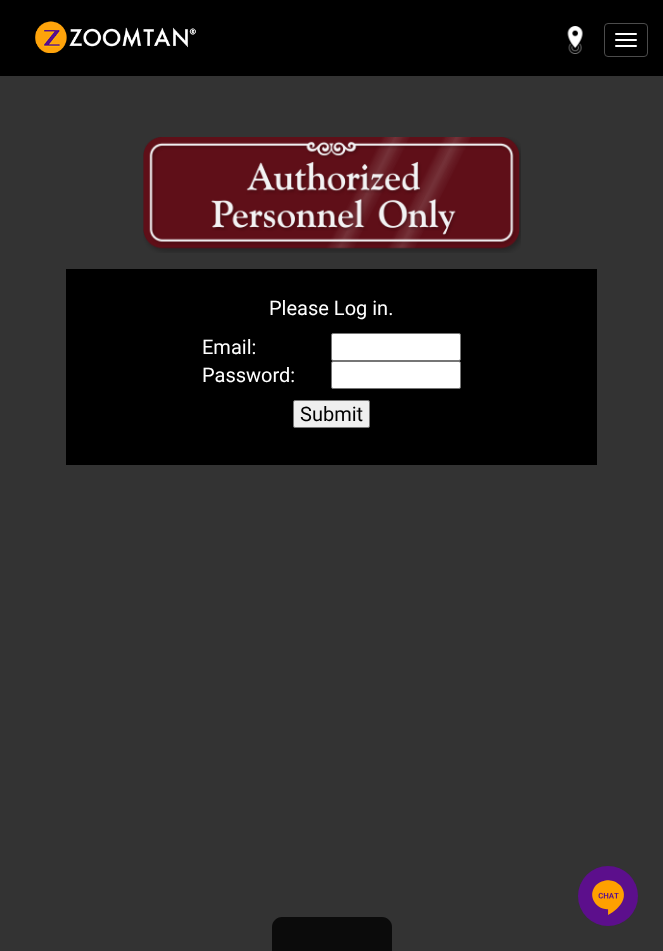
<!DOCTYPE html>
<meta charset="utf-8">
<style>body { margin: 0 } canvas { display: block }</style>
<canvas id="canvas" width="663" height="951"></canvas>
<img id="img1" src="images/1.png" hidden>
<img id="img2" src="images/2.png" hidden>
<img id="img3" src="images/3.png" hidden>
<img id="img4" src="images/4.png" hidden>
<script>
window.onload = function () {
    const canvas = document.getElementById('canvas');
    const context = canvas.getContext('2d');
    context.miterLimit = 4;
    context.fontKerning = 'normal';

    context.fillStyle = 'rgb(51, 51, 51)';
    context.fillRect(0, 0, 663, 951);
    context.fillStyle = 'rgb(0, 0, 0)';
    context.fillRect(0, 0, 663, 76);
    context.drawImage(document.getElementById('img1'), 35, 21, 161, 32);
    context.drawImage(document.getElementById('img2'), 567, 26, 16, 28);
    context.beginPath();
    context.roundRect(604.5, 23.5, 43, 33, 3.5);
    context.strokeStyle = 'rgb(76, 76, 76)';
    context.stroke();
    context.fillStyle = 'rgb(255, 255, 255)';
    context.beginPath();
    context.roundRect(615, 33, 22, 2, 1);
    context.fill();
    context.beginPath();
    context.roundRect(615, 39, 22, 2, 1);
    context.fill();
    context.beginPath();
    context.roundRect(615, 45, 22, 2, 1);
    context.fill();
    context.drawImage(document.getElementById('img3'), 143, 137, 378, 116);
    context.fillStyle = 'rgb(0, 0, 0)';
    context.fillRect(66, 269, 531, 196);
    context.fillStyle = 'rgb(255, 255, 255)';
    context.beginPath();
    context.roundRect(331.5, 333.5, 129, 27, 1.5);
    context.fill();
    context.strokeStyle = 'rgb(118, 118, 118)';
    context.stroke();
    context.beginPath();
    context.roundRect(331.5, 361.5, 129, 27, 1.5);
    context.fill();
    context.stroke();
    context.fillStyle = 'rgb(239, 239, 239)';
    context.beginPath();
    context.roundRect(293.5, 400.5, 76, 27, 1.5);
    context.fill();
    context.stroke();
    context.fillStyle = 'rgb(11, 11, 11)';
    context.beginPath();
    context.moveTo(282, 917);
    context.lineTo(382, 917);
    context.bezierCurveTo(387.5, 917, 392, 921.5, 392, 927);
    context.lineTo(392, 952);
    context.lineTo(272, 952);
    context.lineTo(272, 927);
    context.bezierCurveTo(272, 921.5, 276.5, 917, 282, 917);
    context.closePath();
    context.fill();
    context.drawImage(document.getElementById('img4'), 578, 866, 60, 60);
    context.font = '20px Roboto';
    context.fillStyle = 'rgb(255, 255, 255)';
    context.fillText('Please Log in.', 269, 315);
    context.fillText('Email:', 202, 354);
    context.fillText('Password:', 202, 382);
    context.fillStyle = 'rgb(0, 0, 0)';
    context.fillText('Submit', 300, 421);
};
</script>
